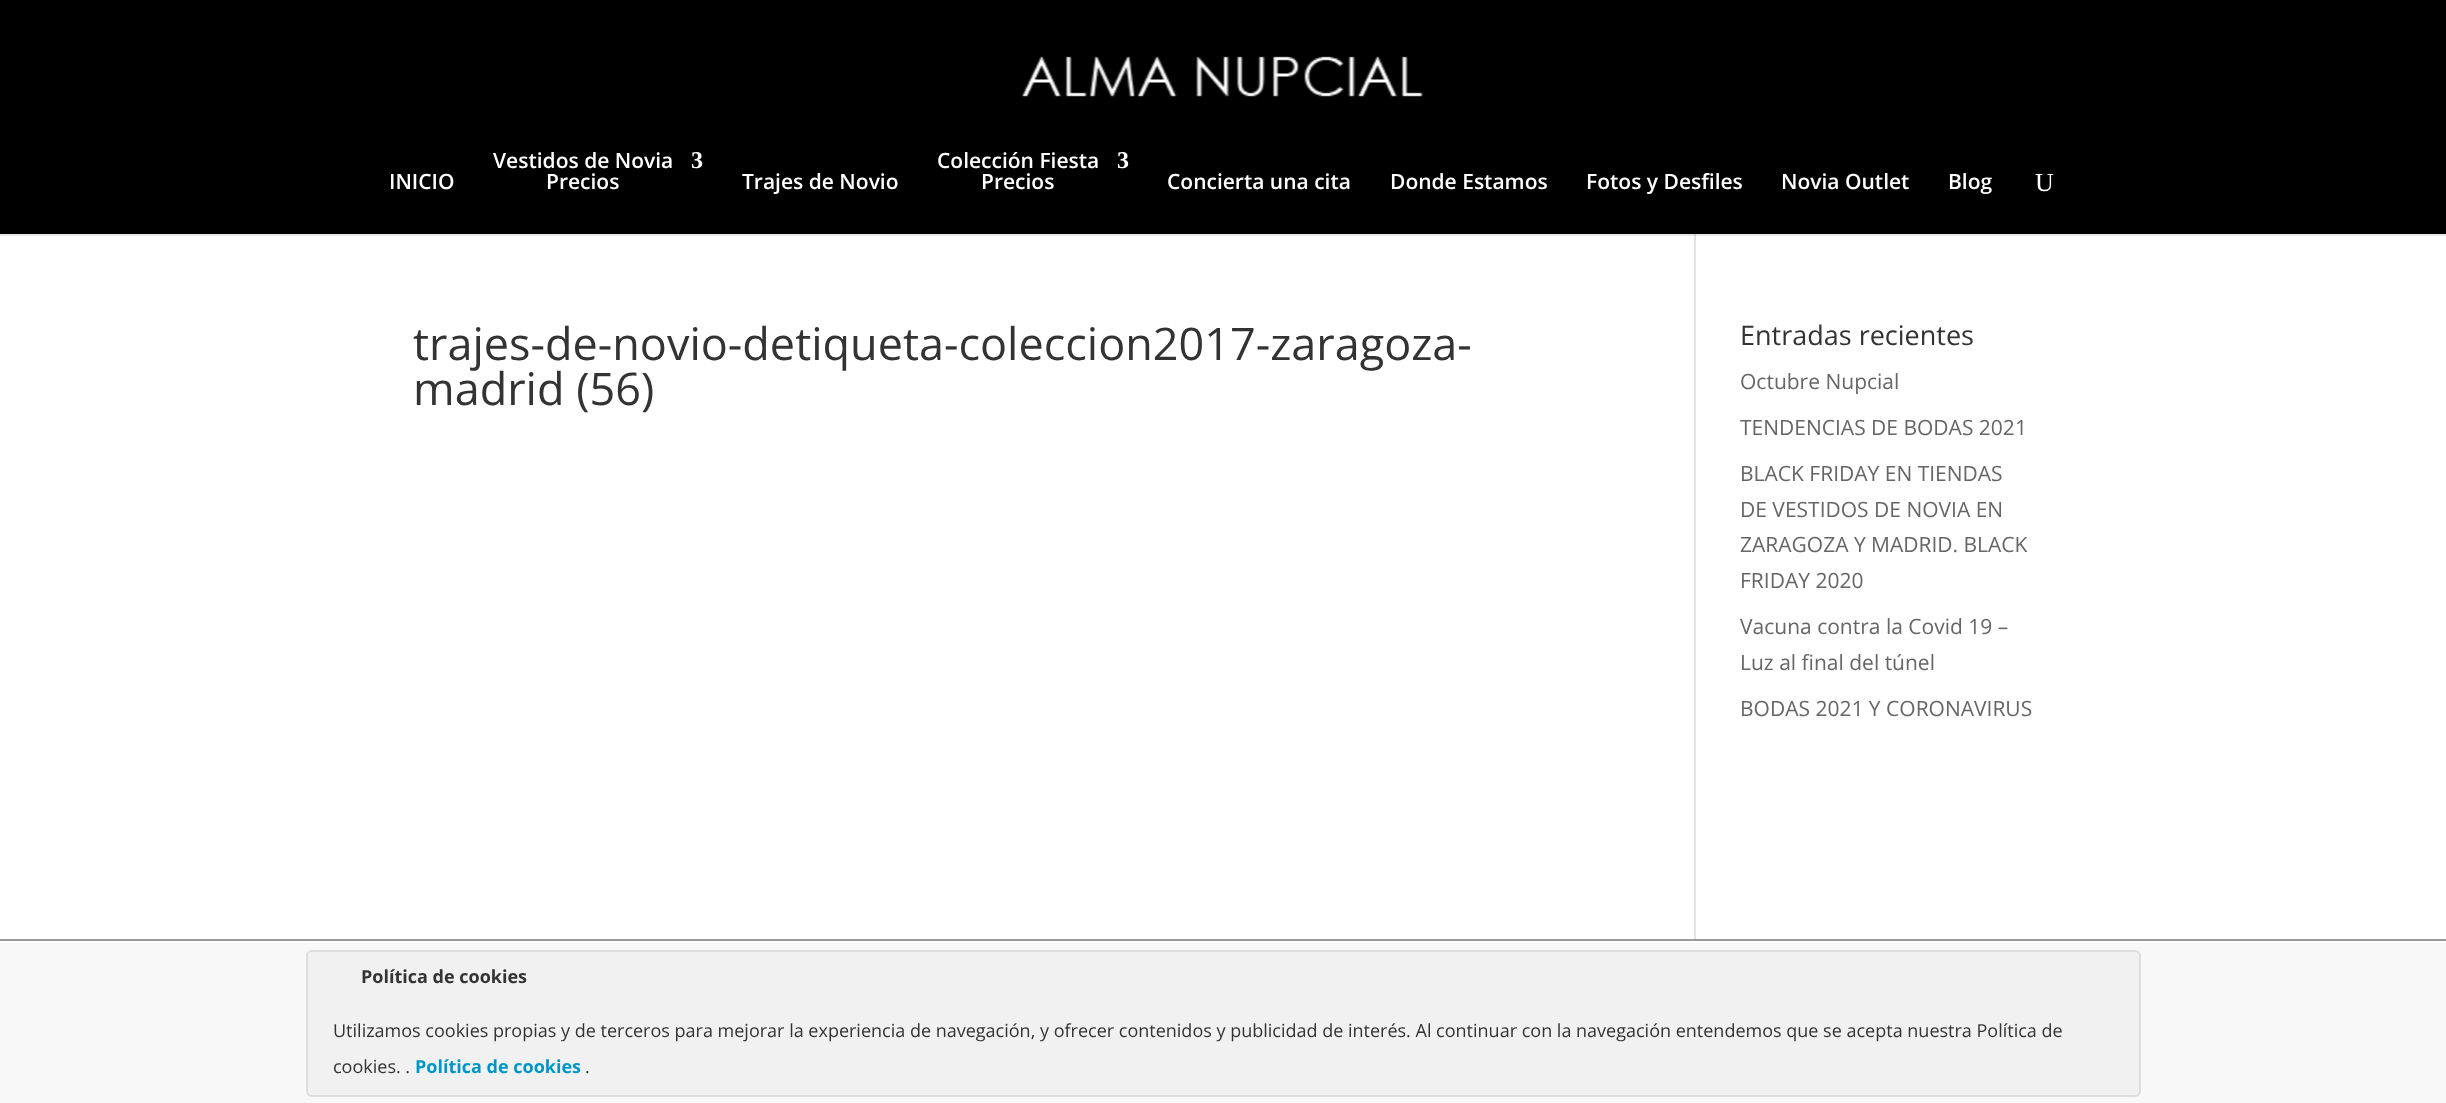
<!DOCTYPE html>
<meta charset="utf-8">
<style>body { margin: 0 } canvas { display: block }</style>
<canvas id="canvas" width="2446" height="1103"></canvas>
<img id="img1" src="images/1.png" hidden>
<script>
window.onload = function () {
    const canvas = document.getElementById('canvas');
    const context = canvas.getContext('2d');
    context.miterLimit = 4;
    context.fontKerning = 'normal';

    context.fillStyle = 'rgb(255, 255, 255)';
    context.fillRect(0, 0, 2446, 1103);
    context.fillStyle = 'rgb(226, 226, 226)';
    context.fillRect(1694, 234, 2, 707);
    context.fillStyle = 'rgba(0, 0, 0, 0.1)';
    context.beginPath();
    context.moveTo(0, 234);
    context.lineTo(0, 236);
    context.lineTo(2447, 236);
    context.lineTo(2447, 2);
    context.lineTo(2446, 2);
    context.lineTo(2446, 234);
    context.closePath();
    context.fill();
    context.fillStyle = 'rgb(0, 0, 0)';
    context.fillRect(0, 0, 2446, 234);
    context.drawImage(document.getElementById('img1'), 1021, 56, 402, 41);
    context.fillStyle = 'rgb(153, 153, 153)';
    context.fillRect(0, 939, 2446, 2);
    context.fillStyle = 'rgb(248, 248, 248)';
    context.fillRect(0, 943, 2446, 160);
    context.fillStyle = 'rgb(241, 241, 241)';
    context.beginPath();
    context.roundRect(307, 951, 1833, 145, 5);
    context.fill();
    context.strokeStyle = 'rgb(221, 221, 221)';
    context.lineWidth = 2;
    context.stroke();
    context.font = '600 21px Open Sans';
    context.fillStyle = 'rgb(255, 255, 255)';
    context.fillText('INICIO', 389, 189);
    context.fillText('Vestidos de Novia', 493, 168);
    context.font = 'bold 24px Liberation Serif';
    context.fillText('3', 691, 168);
    context.font = '600 21px Open Sans';
    context.fillText('Precios', 546, 189);
    context.fillText('Trajes de Novio', 742, 189);
    context.fillText('Colección Fiesta', 937, 168);
    context.font = 'bold 24px Liberation Serif';
    context.fillText('3', 1117, 168);
    context.font = '600 21px Open Sans';
    context.fillText('Precios', 981, 189);
    context.fillText('Concierta una cita', 1167, 189);
    context.fillText('Donde Estamos', 1390, 189);
    context.fillText('Fotos y Desfiles', 1586, 189);
    context.fillText('Novia Outlet', 1781, 189);
    context.fillText('Blog', 1948, 189);
    context.font = '26px Liberation Serif';
    context.fillText('U', 2035, 191);
    context.font = '45px Open Sans';
    context.fillStyle = 'rgb(51, 51, 51)';
    context.fillText('trajes-de-novio-detiqueta-coleccion2017-zaragoza-', 413, 360);
    context.fillText('madrid (56)', 413, 405);
    context.font = '27px Open Sans';
    context.fillText('Entradas recientes', 1740, 345);
    context.font = '21px Open Sans';
    context.fillStyle = 'rgb(102, 102, 102)';
    context.fillText('Octubre Nupcial', 1740, 389);
    context.fillText('TENDENCIAS DE BODAS 2021', 1740, 435);
    context.fillText('BLACK FRIDAY EN TIENDAS', 1740, 481);
    context.fillText('DE VESTIDOS DE NOVIA EN', 1740, 517);
    context.fillText('ZARAGOZA Y MADRID. BLACK', 1740, 552);
    context.fillText('FRIDAY 2020', 1740, 588);
    context.fillText('Vacuna contra la Covid 19 –', 1740, 634);
    context.fillText('Luz al final del túnel', 1740, 670);
    context.fillText('BODAS 2021 Y CORONAVIRUS', 1740, 716);
    context.font = 'bold 18px Open Sans';
    context.fillStyle = 'rgb(51, 51, 51)';
    context.fillText('Política de cookies', 361, 983);
    context.font = '18px Open Sans';
    context.fillText('Utilizamos cookies propias y de terceros para mejorar la experiencia de navegación, y ofrecer contenidos y publicidad de interés. Al continuar con la navegación entendemos que se acepta nuestra Política de', 333, 1037);
    context.fillText('cookies. .', 333, 1073);
    context.font = 'bold 18px Open Sans';
    context.fillStyle = 'rgb(0, 151, 200)';
    context.fillText('Política de cookies', 415, 1073);
    context.font = '18px Open Sans';
    context.fillStyle = 'rgb(51, 51, 51)';
    context.fillText('.', 585, 1073);
};
</script>
